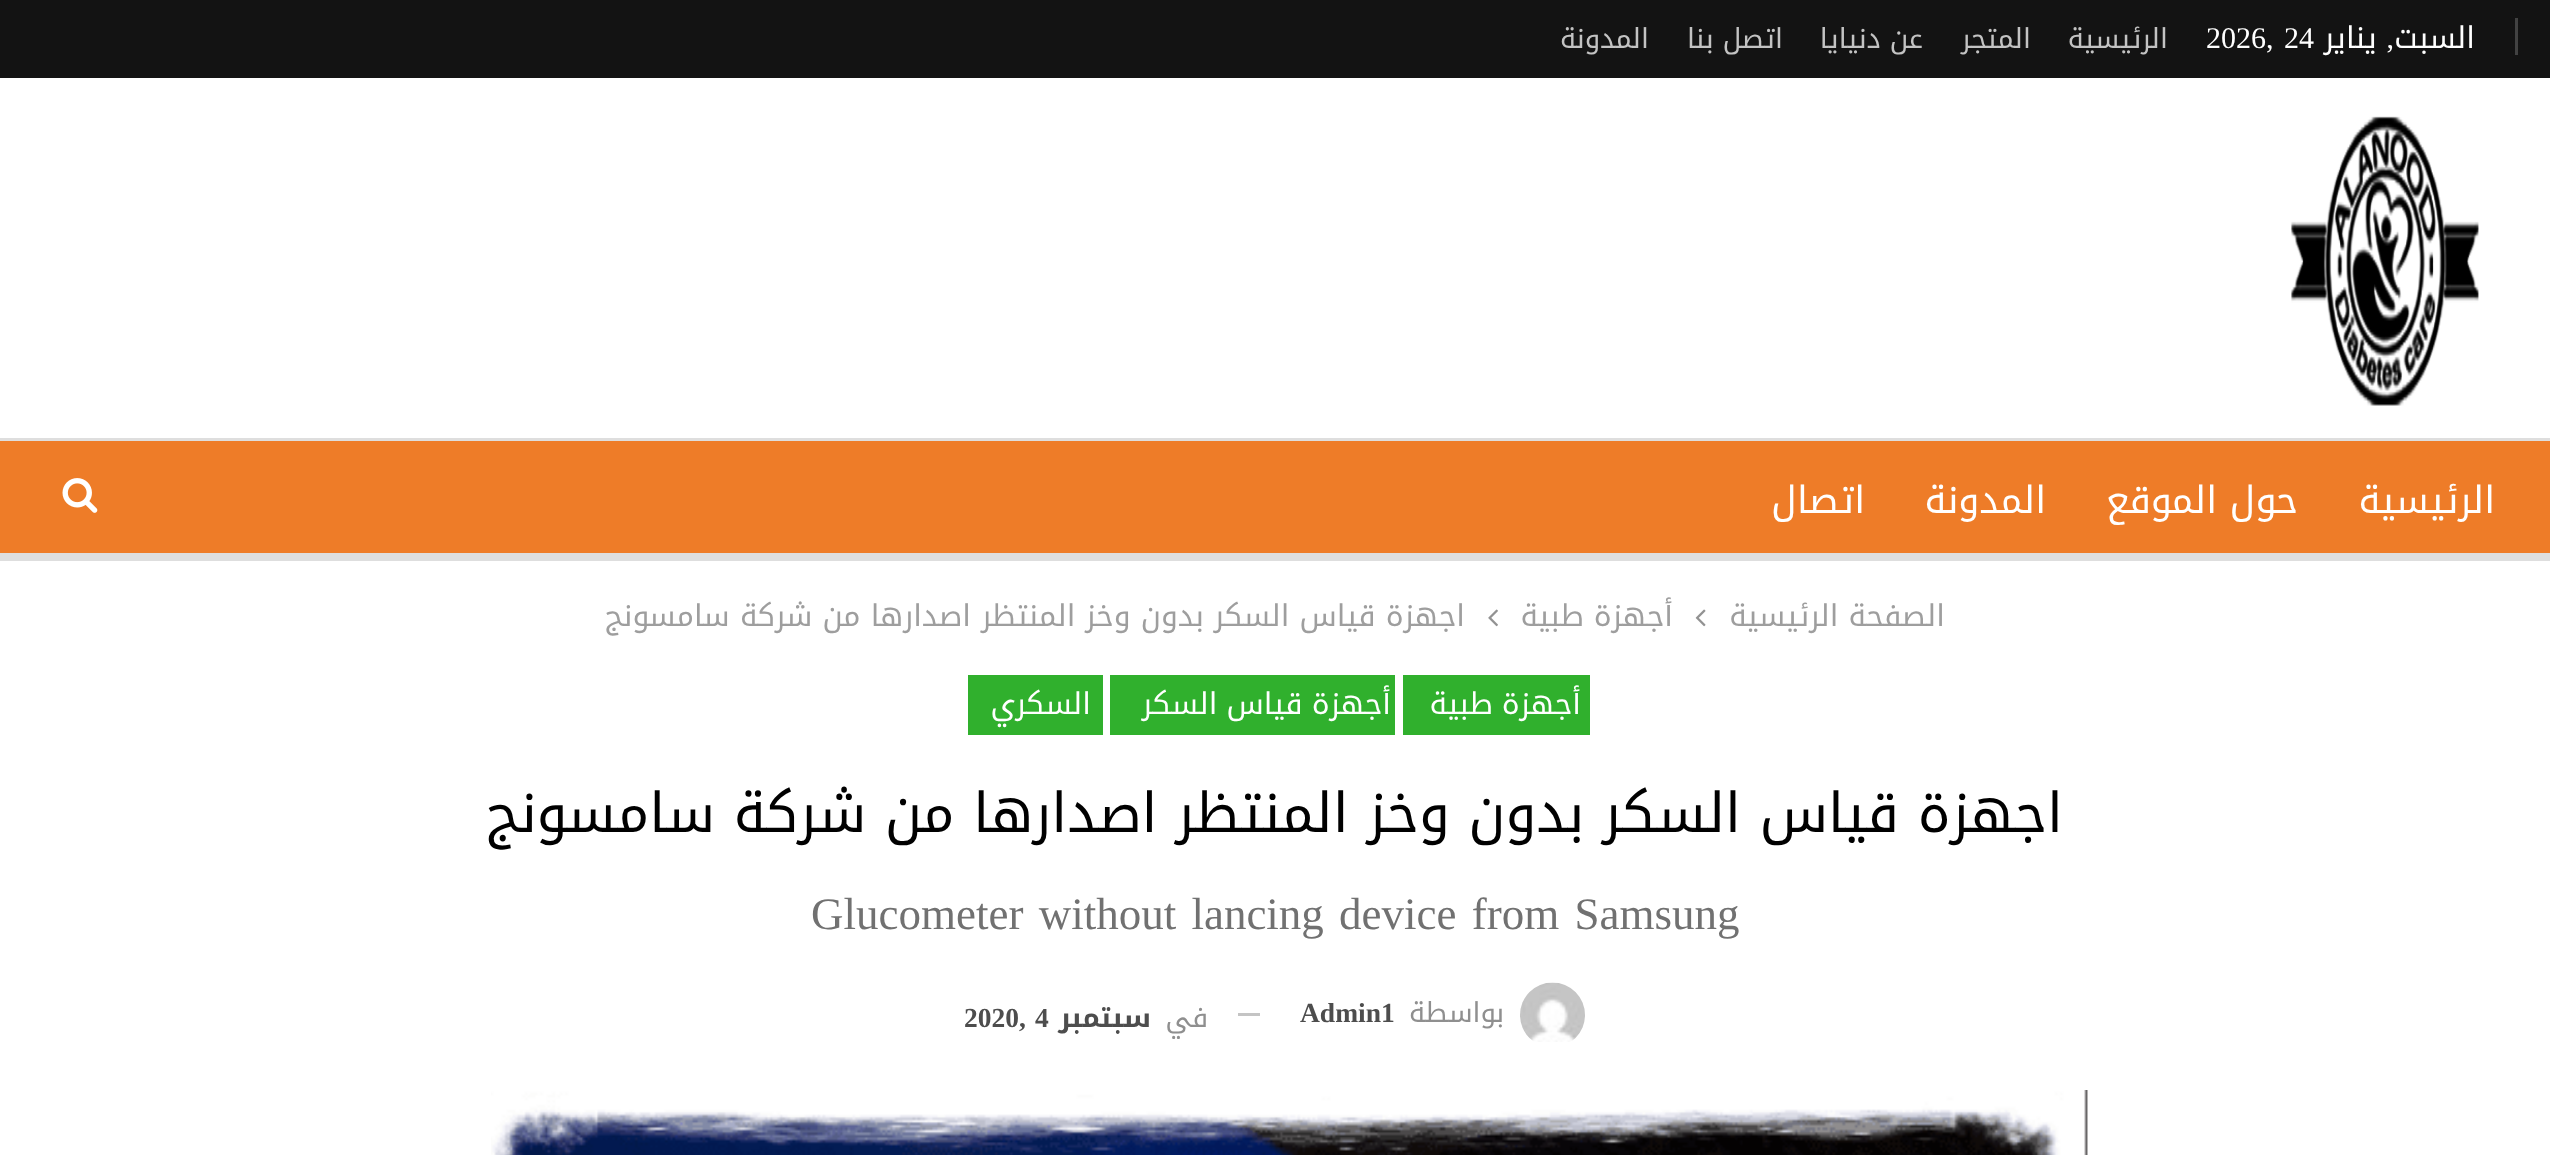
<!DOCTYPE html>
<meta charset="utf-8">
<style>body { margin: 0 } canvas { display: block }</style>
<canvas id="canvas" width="2550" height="1155"></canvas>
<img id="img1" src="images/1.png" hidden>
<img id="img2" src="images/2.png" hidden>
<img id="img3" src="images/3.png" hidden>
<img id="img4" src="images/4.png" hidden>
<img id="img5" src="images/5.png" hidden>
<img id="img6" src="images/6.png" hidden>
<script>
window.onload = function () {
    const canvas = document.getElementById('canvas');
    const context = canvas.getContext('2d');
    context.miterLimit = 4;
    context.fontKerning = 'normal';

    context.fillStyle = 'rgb(255, 255, 255)';
    context.fillRect(0, 0, 2550, 1155);
    context.fillStyle = 'rgb(19, 19, 19)';
    context.fillRect(0, 0, 2550, 78);
    context.fillStyle = 'rgb(66, 66, 66)';
    context.fillRect(2515, 18, 3, 37);
    context.drawImage(document.getElementById('img1'), 2291, 116, 188, 290);
    context.fillStyle = 'rgb(238, 124, 40)';
    context.fillRect(0, 441, 2550, 112);
    context.fillStyle = 'rgb(222, 222, 222)';
    context.fillRect(0, 438, 2550, 3);
    context.fillRect(0, 553, 2550, 8);
    context.drawImage(document.getElementById('img2'), 62, 478, 36, 35);
    context.drawImage(document.getElementById('img3'), 1695, 609, 11, 18);
    context.drawImage(document.getElementById('img4'), 1488, 609, 10, 18);
    context.fillStyle = 'rgb(48, 176, 45)';
    context.fillRect(1403, 675, 187, 60);
    context.fillRect(1110, 675, 285, 60);
    context.fillRect(968, 675, 135, 60);
    context.drawImage(document.getElementById('img5'), 1520, 982, 65, 60);
    context.fillStyle = 'rgb(196, 196, 196)';
    context.fillRect(1238, 1013, 22, 3);
    context.drawImage(document.getElementById('img6'), 491, 1090, 1597, 65);
    context.direction = 'rtl';
    context.font = '30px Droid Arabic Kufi';
    context.fillStyle = 'rgb(255, 255, 255)';
    context.fillText('السبت', 2475, 48);
    context.font = '30px Liberation Serif';
    context.fillText(',', 2394, 48);
    context.font = '30px Droid Arabic Kufi';
    context.fillText('يناير', 2377, 48);
    context.direction = 'ltr';
    context.font = '30px Liberation Serif';
    context.fillText('24', 2284, 48);
    context.fillText('2026,', 2206, 48);
    context.direction = 'rtl';
    context.font = '27.5px Droid Arabic Kufi';
    context.fillStyle = 'rgb(195, 195, 195)';
    context.fillText('الرئيسية', 2168, 48);
    context.fillText('المتجر', 2031, 48);
    context.fillText('عن دنيايا', 1923, 48);
    context.fillText('اتصل بنا', 1783, 48);
    context.fillText('المدونة', 1649, 48);
    context.font = '37.5px Droid Arabic Kufi';
    context.fillStyle = 'rgb(255, 255, 255)';
    context.fillText('الرئيسية', 2495, 513);
    context.fillText('حول الموقع', 2298, 513);
    context.fillText('المدونة', 2046, 513);
    context.fillText('اتصال', 1865, 513);
    context.font = '30px Droid Arabic Kufi';
    context.fillStyle = 'rgb(158, 158, 158)';
    context.fillText('الصفحة الرئيسية', 1945, 626);
    context.fillText('أجهزة طبية', 1673, 626);
    context.fillText('اجهزة قياس السكر بدون وخز المنتظر اصدارها من شركة سامسونج', 1465, 626);
    context.letterSpacing = '1px';
    context.wordSpacing = '-2px';
    context.fillStyle = 'rgb(255, 255, 255)';
    context.fillText('أجهزة طبية', 1581, 714);
    context.fillText('أجهزة قياس السكر', 1391, 714);
    context.wordSpacing = '0px';
    context.fillText('السكري', 1091, 714);
    context.letterSpacing = '0px';
    context.font = '55px Droid Arabic Kufi';
    context.fillStyle = 'rgb(0, 0, 0)';
    context.fillText('اجهزة قياس السكر بدون وخز المنتظر اصدارها من شركة سامسونج', 2063, 832);
    context.wordSpacing = '4px';
    context.direction = 'ltr';
    context.font = '45px Liberation Serif';
    context.fillStyle = 'rgb(113, 113, 113)';
    context.fillText('Glucometer without lancing device from Samsung', 811, 929);
    context.wordSpacing = '0px';
    context.direction = 'rtl';
    context.font = '27.5px Droid Arabic Kufi';
    context.fillStyle = 'rgb(143, 143, 143)';
    context.fillText('بواسطة', 1504, 1022);
    context.direction = 'ltr';
    context.font = 'bold 27.5px Liberation Serif';
    context.fillStyle = 'rgb(77, 77, 77)';
    context.fillText('Admin1', 1300, 1022);
    context.direction = 'rtl';
    context.font = '27.5px Droid Arabic Kufi';
    context.fillStyle = 'rgb(143, 143, 143)';
    context.fillText('في', 1208, 1027);
    context.font = 'bold 27.5px Droid Arabic Kufi';
    context.fillStyle = 'rgb(77, 77, 77)';
    context.fillText('سبتمبر', 1151, 1027);
    context.direction = 'ltr';
    context.font = 'bold 27.5px Liberation Serif';
    context.fillText('4', 1035, 1027);
    context.fillText('2020,', 964, 1027);
};
</script>
